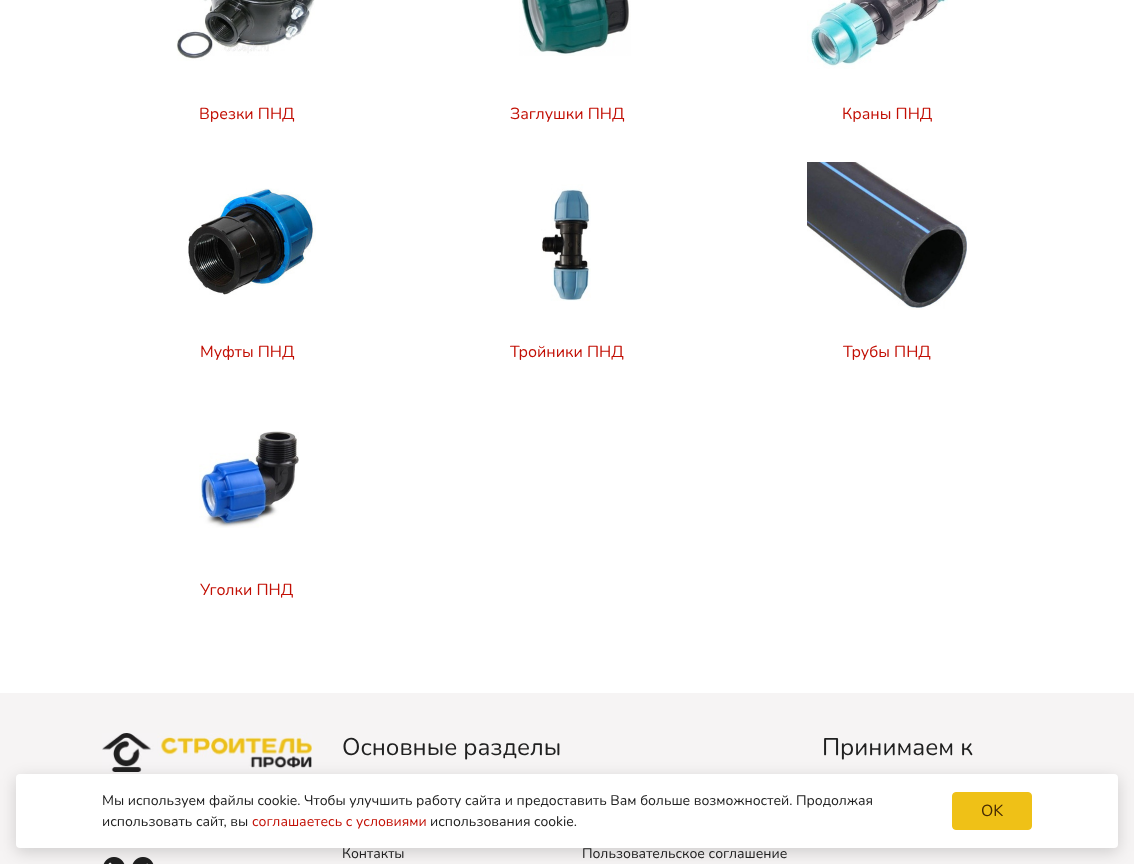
<!DOCTYPE html>
<meta charset="utf-8">
<style>body { margin: 0 } canvas { display: block }</style>
<canvas id="canvas" width="1134" height="864"></canvas>
<img id="img1" src="images/1.png" hidden>
<img id="img2" src="images/2.png" hidden>
<img id="img3" src="images/3.png" hidden>
<img id="img4" src="images/4.png" hidden>
<img id="img5" src="images/5.png" hidden>
<img id="img6" src="images/6.png" hidden>
<img id="img7" src="images/7.png" hidden>
<img id="img8" src="images/8.png" hidden>
<img id="img9" src="images/9.png" hidden>
<img id="img10" src="images/10.png" hidden>
<script>
window.onload = function () {
    const canvas = document.getElementById('canvas');
    const context = canvas.getContext('2d');
    context.miterLimit = 4;
    context.fontKerning = 'normal';

    context.fillStyle = 'rgb(255, 255, 255)';
    context.fillRect(0, 0, 1134, 864);
    context.drawImage(document.getElementById('img1'), 176, 0, 139, 61);
    context.drawImage(document.getElementById('img2'), 519, 0, 112, 56);
    context.drawImage(document.getElementById('img3'), 807, 0, 141, 69);
    context.drawImage(document.getElementById('img4'), 188, 188, 128, 107);
    context.drawImage(document.getElementById('img5'), 541, 184, 50, 117);
    context.drawImage(document.getElementById('img6'), 807, 162, 160, 148);
    context.drawImage(document.getElementById('img7'), 199, 431, 100, 97);
    context.fillStyle = 'rgb(246, 244, 244)';
    context.fillRect(0, 693, 1134, 171);
    context.drawImage(document.getElementById('img8'), 102, 733, 210, 39);
    context.drawImage(document.getElementById('img9'), 103, 857, 22, 7);
    context.drawImage(document.getElementById('img10'), 132, 857, 22, 7);
    context.fillStyle = 'rgba(0, 0, 0, 0.16)';
    context.filter = 'blur(8px)';
    context.beginPath();
    context.roundRect(16, 778, 1102, 74, 4);
    context.fill();
    context.filter = 'none';
    context.fillStyle = 'rgb(255, 255, 255)';
    context.beginPath();
    context.roundRect(16, 774, 1102, 74, 4);
    context.fill();
    context.fillStyle = 'rgb(239, 193, 23)';
    context.beginPath();
    context.roundRect(952.5, 792.5, 79, 37, 3.5);
    context.fill();
    context.strokeStyle = 'rgb(239, 193, 23)';
    context.stroke();
    context.font = '200 16px Nunito';
    context.fillStyle = 'rgb(194, 15, 4)';
    context.fillText('Врезки ПНД', 199, 119);
    context.fillText('Заглушки ПНД', 510, 119);
    context.fillText('Краны ПНД', 842, 119);
    context.fillText('Муфты ПНД', 200, 357);
    context.fillText('Тройники ПНД', 510, 357);
    context.fillText('Трубы ПНД', 843, 357);
    context.fillText('Уголки ПНД', 200, 595);
    context.font = '200 24px Nunito';
    context.fillStyle = 'rgb(32, 32, 32)';
    context.fillText('Основные разделы', 342, 755);
    context.font = '200 14px Nunito';
    context.fillText('Контакты', 342, 858);
    context.fillText('Пользовательское соглашение', 582, 858);
    context.font = '200 24px Nunito';
    context.fillText('Принимаем к', 822, 755);
    context.font = '200 14px Nunito';
    context.fillText('Мы используем файлы cookie. Чтобы улучшить работу сайта и предоставить Вам больше возможностей. Продолжая', 102, 805);
    context.fillText('использовать сайт, вы', 102, 826);
    context.fillStyle = 'rgb(194, 15, 4)';
    context.fillText('соглашаетесь с условиями', 252, 826);
    context.fillStyle = 'rgb(32, 32, 32)';
    context.fillText('использования cookie.', 430, 826);
    context.font = '200 16px Nunito';
    context.fillStyle = 'rgb(69, 42, 4)';
    context.fillText('OK', 981, 816);
};
</script>
